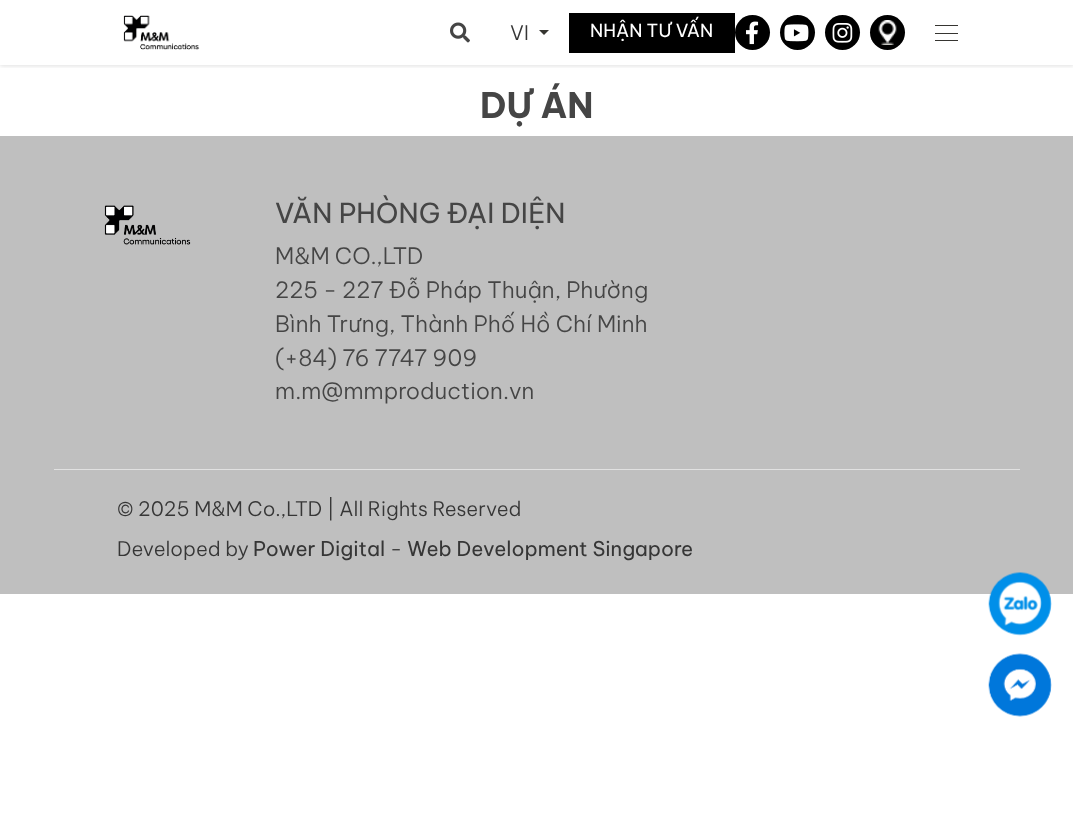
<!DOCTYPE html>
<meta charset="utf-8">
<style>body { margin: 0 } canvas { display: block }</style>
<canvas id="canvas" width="1073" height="825"></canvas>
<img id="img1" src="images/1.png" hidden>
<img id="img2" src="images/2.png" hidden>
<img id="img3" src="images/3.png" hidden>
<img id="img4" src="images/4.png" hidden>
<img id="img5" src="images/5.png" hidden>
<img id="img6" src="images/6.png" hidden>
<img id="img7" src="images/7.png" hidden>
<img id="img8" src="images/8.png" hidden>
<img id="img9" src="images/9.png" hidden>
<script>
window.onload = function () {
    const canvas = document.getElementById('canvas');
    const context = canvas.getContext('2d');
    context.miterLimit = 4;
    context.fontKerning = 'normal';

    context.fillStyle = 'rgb(255, 255, 255)';
    context.fillRect(0, 0, 1073, 825);
    context.save();
    context.beginPath();
    context.rect(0, 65, 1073, 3);
    context.clip();
    context.fillStyle = 'rgba(0, 0, 0, 0.12)';
    context.filter = 'blur(2px)';
    context.beginPath();
    context.rect(0, 1, 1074, 65);
    context.fill();
    context.filter = 'none';
    context.restore();
    context.drawImage(document.getElementById('img1'), 123, 15, 77, 35);
    context.drawImage(document.getElementById('img2'), 450, 22, 20, 21);
    context.fillStyle = 'rgb(54, 53, 49)';
    context.beginPath();
    context.moveTo(539, 30);
    context.lineTo(549, 30);
    context.lineTo(544, 35);
    context.closePath();
    context.fill();
    context.fillStyle = 'rgb(0, 0, 0)';
    context.fillRect(569, 13, 166, 40);
    context.beginPath();
    context.arc(752.5, 32.5, 17.5, 0, 2 * Math.PI);
    context.fill();
    context.drawImage(document.getElementById('img3'), 746, 21, 13, 24);
    context.beginPath();
    context.arc(797.5, 32.5, 17.5, 0, 2 * Math.PI);
    context.fill();
    context.drawImage(document.getElementById('img4'), 784, 24, 25, 18);
    context.beginPath();
    context.arc(842.5, 32.5, 17.5, 0, 2 * Math.PI);
    context.fill();
    context.drawImage(document.getElementById('img5'), 832, 23, 21, 20);
    context.beginPath();
    context.arc(887.5, 32.5, 17.5, 0, 2 * Math.PI);
    context.fill();
    context.drawImage(document.getElementById('img6'), 878, 20, 19, 25);
    context.fillStyle = 'rgb(54, 53, 49)';
    context.fillRect(935, 25, 23, 1);
    context.fillRect(935, 33, 23, 1);
    context.fillRect(935, 40, 23, 1);
    context.fillStyle = 'rgb(191, 191, 191)';
    context.fillRect(0, 136, 1073, 458);
    context.drawImage(document.getElementById('img7'), 104, 205, 87, 40);
    context.fillStyle = 'rgb(225, 225, 225)';
    context.fillRect(54, 469, 966, 1);
    context.drawImage(document.getElementById('img8'), 988, 572, 64, 64);
    context.drawImage(document.getElementById('img9'), 988, 653, 64, 64);
    context.font = '300 20px Be Vietnam Pro';
    context.fillStyle = 'rgb(54, 54, 54)';
    context.fillText('VI', 510, 40);
    context.font = '18px Be Vietnam Pro';
    context.fillStyle = 'rgb(255, 255, 255)';
    context.fillText('NHẬN TƯ VẤN', 590, 37);
    context.font = 'bold 35px Be Vietnam Pro';
    context.fillStyle = 'rgb(69, 69, 69)';
    context.fillText('DỰ ÁN', 480, 118);
    context.font = '27.5px Be Vietnam Pro';
    context.fillText('VĂN PHÒNG ĐẠI DIỆN', 275, 223);
    context.font = '300 22.5px Be Vietnam Pro';
    context.fillText('M&M CO.,LTD', 275, 264);
    context.fillText('225 - 227 Đỗ Pháp Thuận, Phường', 275, 298);
    context.fillText('Bình Trưng, Thành Phố Hồ Chí Minh', 275, 332);
    context.fillText('(+84) 76 7747 909', 275, 366);
    context.fillText('m.m@mmproduction.vn', 275, 399);
    context.font = '300 20px Be Vietnam Pro';
    context.fillStyle = 'rgb(54, 54, 54)';
    context.fillText('© 2025 M&M Co.,LTD | All Rights Reserved', 117, 516);
    context.fillText('Developed by', 117, 556);
    context.font = '20.25px Be Vietnam Pro';
    context.fillText('Power Digital', 253, 556);
    context.font = '300 20px Be Vietnam Pro';
    context.fillText('-', 390, 556);
    context.font = '20.25px Be Vietnam Pro';
    context.fillText('Web Development Singapore', 407, 556);
};
</script>
